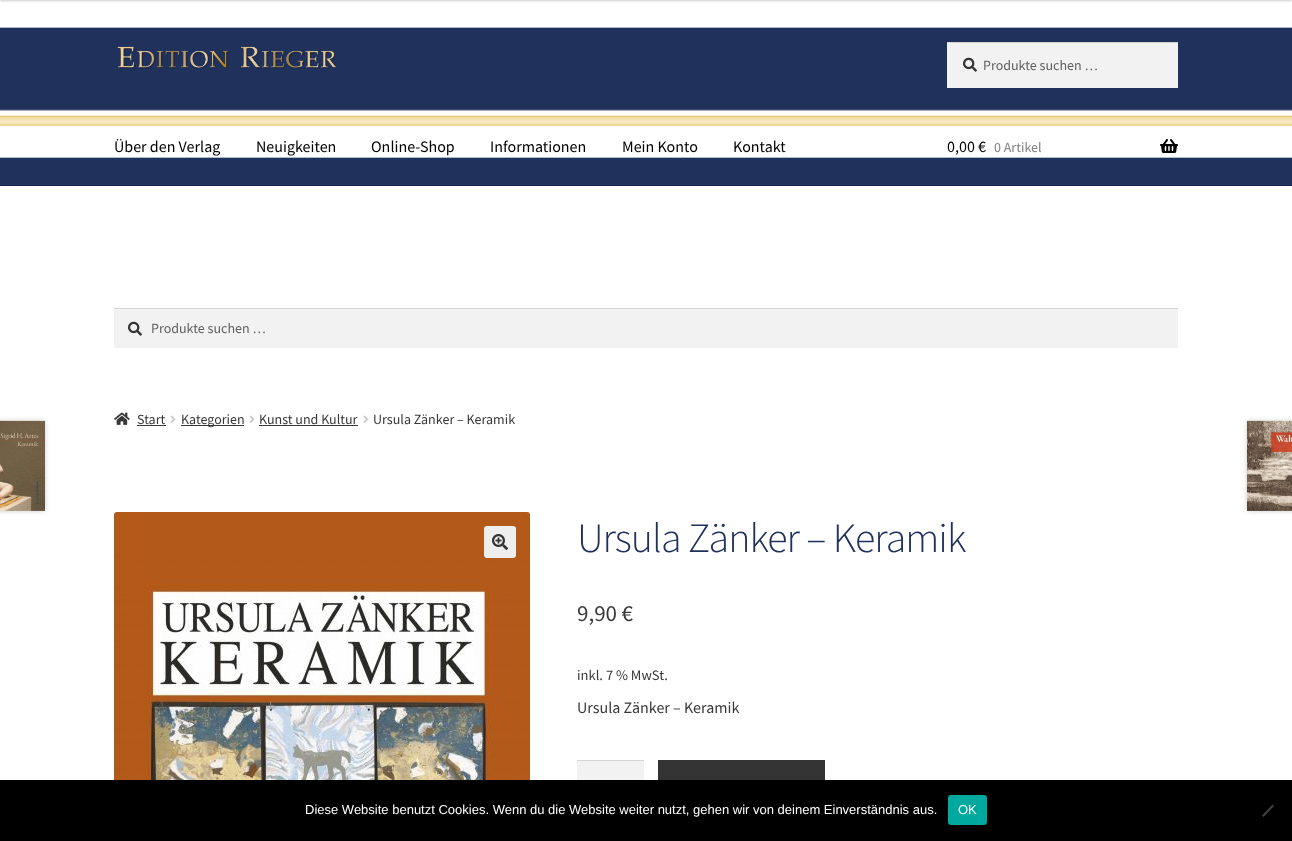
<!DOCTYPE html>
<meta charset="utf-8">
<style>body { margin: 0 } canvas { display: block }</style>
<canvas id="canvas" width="1292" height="841"></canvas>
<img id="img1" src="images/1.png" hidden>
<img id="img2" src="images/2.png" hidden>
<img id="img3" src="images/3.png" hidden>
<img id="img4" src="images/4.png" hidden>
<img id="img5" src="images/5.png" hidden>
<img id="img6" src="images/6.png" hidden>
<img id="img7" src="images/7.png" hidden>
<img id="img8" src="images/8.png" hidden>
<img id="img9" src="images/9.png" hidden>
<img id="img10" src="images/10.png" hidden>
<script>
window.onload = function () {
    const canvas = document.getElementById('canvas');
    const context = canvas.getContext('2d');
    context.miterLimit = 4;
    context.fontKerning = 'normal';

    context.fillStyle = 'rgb(255, 255, 255)';
    context.fillRect(0, 0, 1292, 841);
    context.drawImage(document.getElementById('img1'), 0, 0, 1292, 158);
    context.fillStyle = 'rgba(0, 0, 0, 0.2)';
    context.filter = 'blur(1px)';
    context.beginPath();
    context.rect(0, -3, 1292, 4);
    context.fill();
    context.filter = 'none';
    context.fillStyle = 'rgb(32, 49, 92)';
    context.fillRect(0, 158, 1292, 27);
    context.fillStyle = 'rgb(17, 34, 77)';
    context.fillRect(0, 185, 1292, 1);
    context.drawImage(document.getElementById('img2'), 117, 46, 220, 23);
    context.fillStyle = 'rgb(242, 242, 242)';
    context.fillRect(947, 43, 231, 45);
    context.drawImage(document.getElementById('img3'), 963, 57, 14, 15);
    context.fillStyle = 'rgb(212, 212, 212)';
    context.fillRect(947, 42, 231, 1);
    context.drawImage(document.getElementById('img4'), 1160, 139, 18, 14);
    context.fillStyle = 'rgb(242, 242, 242)';
    context.fillRect(114, 309, 1064, 39);
    context.drawImage(document.getElementById('img3'), 128, 321, 14, 15);
    context.fillStyle = 'rgb(212, 212, 212)';
    context.fillRect(114, 308, 1064, 1);
    context.drawImage(document.getElementById('img5'), 114, 412, 16, 13);
    context.fillStyle = 'rgb(56, 56, 56)';
    context.fillRect(137, 425, 29, 1);
    context.drawImage(document.getElementById('img6'), 170, 415, 6, 8);
    context.fillRect(181, 425, 63, 1);
    context.drawImage(document.getElementById('img6'), 249, 415, 6, 8);
    context.fillRect(259, 425, 99, 1);
    context.drawImage(document.getElementById('img6'), 363, 415, 6, 8);
    context.fillStyle = 'rgba(0, 0, 0, 0.2)';
    context.filter = 'blur(2.5px)';
    context.beginPath();
    context.rect(-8, 421, 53, 90);
    context.fill();
    context.filter = 'none';
    context.drawImage(document.getElementById('img7'), 0, 420, 45, 91);
    context.filter = 'blur(2.5px)';
    context.beginPath();
    context.rect(1247, 421, 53, 90);
    context.fill();
    context.filter = 'none';
    context.drawImage(document.getElementById('img8'), 1247, 420, 45, 91);
    context.drawImage(document.getElementById('img9'), 114, 512, 416, 268);
    context.fillStyle = 'rgb(238, 238, 238)';
    context.beginPath();
    context.roundRect(484, 526, 32, 32, 3);
    context.fill();
    context.drawImage(document.getElementById('img10'), 492, 534, 16, 16);
    context.fillStyle = 'rgb(242, 242, 242)';
    context.fillRect(577, 761, 67, 19);
    context.fillStyle = 'rgb(212, 212, 212)';
    context.fillRect(577, 760, 67, 1);
    context.fillStyle = 'rgb(51, 51, 51)';
    context.fillRect(658, 760, 167, 20);
    context.fillStyle = 'rgb(0, 0, 0)';
    context.fillRect(0, 780, 1292, 61);
    context.fillStyle = 'rgb(0, 169, 157)';
    context.beginPath();
    context.roundRect(948, 795, 39, 30, 3);
    context.fill();
    context.fillStyle = 'rgb(64, 64, 64)';
    context.beginPath();
    context.moveTo(1272.5, 804.5);
    context.lineTo(1274, 806);
    context.lineTo(1263.5, 817);
    context.lineTo(1262, 815.5);
    context.closePath();
    context.fill();
    context.font = '14px Source Sans Pro';
    context.fillStyle = 'rgb(97, 97, 97)';
    context.fillText('Produkte suchen …', 983, 70);
    context.font = '16px Source Sans Pro';
    context.fillStyle = 'rgb(0, 0, 0)';
    context.fillText('Über den Verlag', 114, 152);
    context.fillText('Neuigkeiten', 256, 152);
    context.fillText('Online-Shop', 371, 152);
    context.fillText('Informationen', 490, 152);
    context.fillText('Mein Konto', 622, 152);
    context.fillText('Kontakt', 733, 152);
    context.fillText('0,00 €', 947, 152);
    context.font = '14px Source Sans Pro';
    context.fillStyle = 'rgb(128, 128, 128)';
    context.fillText('0 Artikel', 994, 152);
    context.fillStyle = 'rgb(97, 97, 97)';
    context.fillText('Produkte suchen …', 151, 333);
    context.fillStyle = 'rgb(56, 56, 56)';
    context.fillText('Start', 137, 424);
    context.fillText('Kategorien', 181, 424);
    context.fillText('Kunst und Kultur', 259, 424);
    context.fillText('Ursula Zänker – Keramik', 373, 424);
    context.letterSpacing = '-1px';
    context.font = '300 41.9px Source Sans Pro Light';
    context.fillStyle = 'rgb(32, 49, 92)';
    context.fillText('Ursula Zänker – Keramik', 577, 552);
    context.letterSpacing = '0px';
    context.font = '23px Source Sans Pro';
    context.fillStyle = 'rgb(56, 56, 56)';
    context.fillText('9,90 €', 577, 621);
    context.font = '14.5px Source Sans Pro';
    context.fillText('inkl. 7 % MwSt.', 577, 680);
    context.font = '16px Source Sans Pro';
    context.fillText('Ursula Zänker – Keramik', 577, 713);
    context.font = '13px Liberation Sans';
    context.fillStyle = 'rgb(255, 255, 255)';
    context.fillText('Diese Website benutzt Cookies. Wenn du die Website weiter nutzt, gehen wir von deinem Einverständnis aus.', 305, 814);
    context.fillText('OK', 958, 814);
};
</script>
